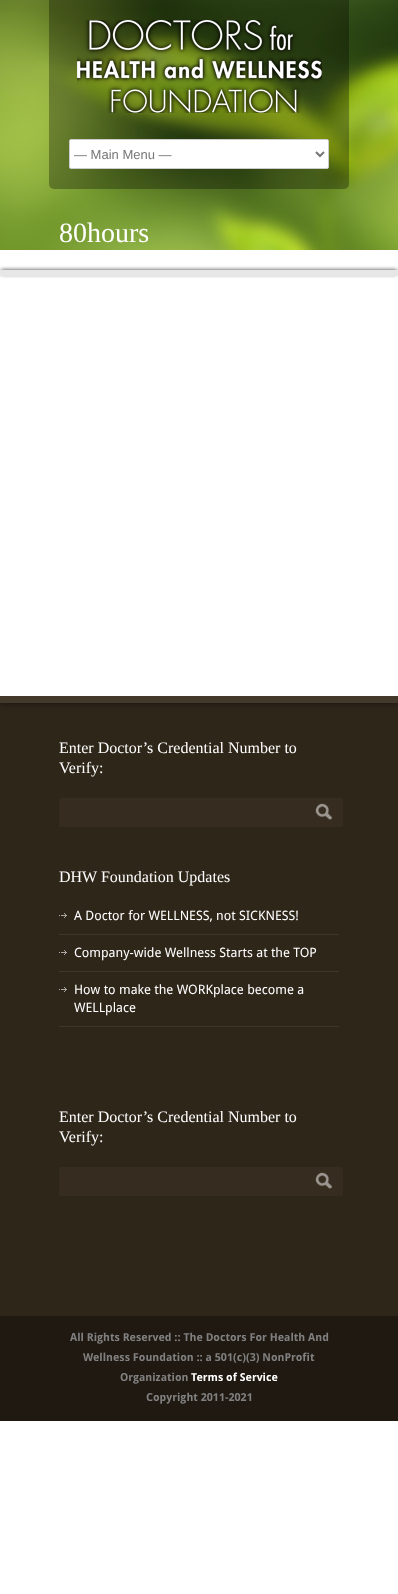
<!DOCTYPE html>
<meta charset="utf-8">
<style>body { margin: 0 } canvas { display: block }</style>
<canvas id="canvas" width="398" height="1594"></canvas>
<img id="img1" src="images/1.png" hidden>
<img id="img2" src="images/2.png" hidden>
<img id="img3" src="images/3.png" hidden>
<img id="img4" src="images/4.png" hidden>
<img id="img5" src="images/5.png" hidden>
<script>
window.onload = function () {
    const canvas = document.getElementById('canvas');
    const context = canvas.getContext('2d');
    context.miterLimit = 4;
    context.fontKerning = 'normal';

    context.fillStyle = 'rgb(255, 255, 255)';
    context.fillRect(0, 0, 398, 1594);
    context.drawImage(document.getElementById('img1'), 0, 0, 398, 250);
    context.drawImage(document.getElementById('img2'), 49, 0, 300, 189);
    context.drawImage(document.getElementById('img3'), 77, 20, 245, 93);
    context.beginPath();
    context.roundRect(69.5, 139.5, 259, 29, 1.5);
    context.fill();
    context.strokeStyle = 'rgb(204, 204, 204)';
    context.stroke();
    context.beginPath();
    context.moveTo(316, 152);
    context.lineTo(320, 156);
    context.lineTo(324, 152);
    context.strokeStyle = 'rgb(119, 119, 119)';
    context.lineWidth = 2;
    context.stroke();
    context.fillStyle = 'rgb(51, 51, 51)';
    context.filter = 'blur(2px)';
    context.beginPath();
    context.rect(1, 270, 396, 4);
    context.fill();
    context.filter = 'none';
    context.fillStyle = 'rgb(231, 231, 231)';
    context.fillRect(0, 270, 398, 6);
    context.fillStyle = 'rgb(47, 38, 26)';
    context.fillRect(0, 703, 398, 613);
    context.save();
    context.beginPath();
    context.rect(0, 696, 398, 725);
    context.clip();
    context.fillStyle = 'rgb(17, 17, 17)';
    context.filter = 'blur(3px)';
    context.beginPath();
    context.rect(0, 696, 398, 7);
    context.fill();
    context.filter = 'none';
    context.restore();
    context.fillStyle = 'rgb(67, 57, 43)';
    context.fillRect(0, 696, 398, 7);
    context.fillStyle = 'rgb(54, 45, 32)';
    context.beginPath();
    context.roundRect(59, 798, 284, 29, 2);
    context.fill();
    context.drawImage(document.getElementById('img4'), 315, 803, 17, 17);
    context.drawImage(document.getElementById('img5'), 59, 913, 8, 5);
    context.fillStyle = 'rgb(63, 54, 42)';
    context.fillRect(59, 934, 280, 1);
    context.drawImage(document.getElementById('img5'), 59, 950, 8, 5);
    context.fillRect(59, 971, 280, 1);
    context.drawImage(document.getElementById('img5'), 59, 987, 8, 5);
    context.fillRect(59, 1026, 280, 1);
    context.fillStyle = 'rgb(54, 45, 32)';
    context.beginPath();
    context.roundRect(59, 1167, 284, 29, 2);
    context.fill();
    context.drawImage(document.getElementById('img4'), 315, 1172, 17, 17);
    context.fillStyle = 'rgb(31, 25, 17)';
    context.fillRect(0, 1316, 398, 105);
    context.font = '13px Liberation Sans';
    context.fillStyle = 'rgb(119, 119, 119)';
    context.fillText('— Main Menu —', 74, 159);
    context.font = '28px Liberation Serif';
    context.fillStyle = 'rgb(255, 255, 255)';
    context.fillText('80hours', 59, 242);
    context.font = '16px Liberation Serif';
    context.fillText('Enter Doctor’s Credential Number to', 59, 753);
    context.fillText('Verify:', 59, 773);
    context.fillText('DHW Foundation Updates', 59, 882);
    context.font = '13px Droid Sans';
    context.fillText('A Doctor for WELLNESS, not SICKNESS!', 74, 920);
    context.fillText('Company-wide Wellness Starts at the TOP', 74, 957);
    context.fillText('How to make the WORKplace become a', 74, 994);
    context.fillText('WELLplace', 74, 1012);
    context.font = '16px Liberation Serif';
    context.fillText('Enter Doctor’s Credential Number to', 59, 1122);
    context.fillText('Verify:', 59, 1142);
    context.font = 'bold 11px Droid Sans';
    context.fillStyle = 'rgb(128, 128, 128)';
    context.fillText('All Rights Reserved :: The Doctors For Health And', 70, 1341);
    context.fillText('Wellness Foundation :: a 501(c)(3) NonProfit', 83, 1361);
    context.fillText('Organization', 120, 1381);
    context.fillStyle = 'rgb(255, 255, 255)';
    context.fillText('Terms of Service', 191, 1381);
    context.fillStyle = 'rgb(128, 128, 128)';
    context.fillText('Copyright 2011-2021', 146, 1401);
};
</script>
